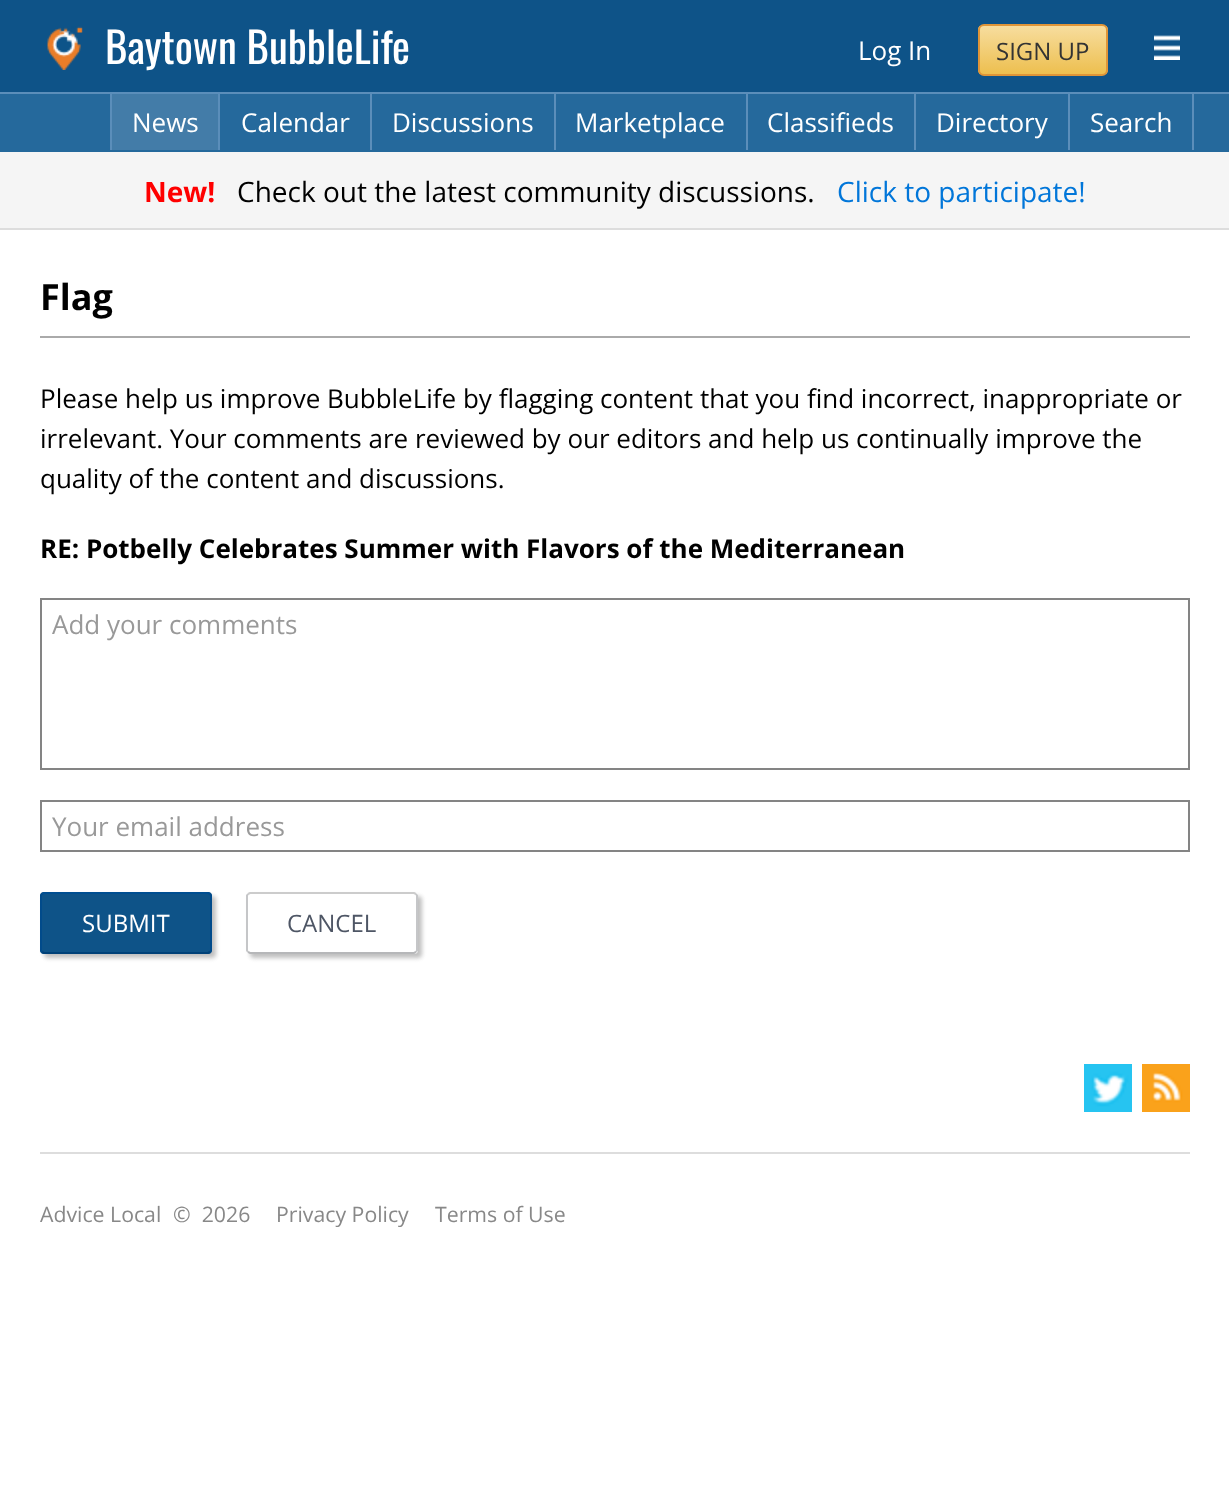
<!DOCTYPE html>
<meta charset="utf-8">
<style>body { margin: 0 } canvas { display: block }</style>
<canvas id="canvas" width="1229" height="1505"></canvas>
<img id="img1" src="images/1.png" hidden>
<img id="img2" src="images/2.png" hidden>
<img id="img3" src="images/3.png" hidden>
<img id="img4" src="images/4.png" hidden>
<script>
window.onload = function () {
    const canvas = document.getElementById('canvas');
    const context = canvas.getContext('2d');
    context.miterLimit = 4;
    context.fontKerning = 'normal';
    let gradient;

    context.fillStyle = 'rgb(255, 255, 255)';
    context.fillRect(0, 0, 1229, 1505);
    context.fillStyle = 'rgb(14, 83, 136)';
    context.fillRect(0, 0, 1229, 92);
    context.drawImage(document.getElementById('img1'), 47, 26, 36, 44);
    context.save();
    context.beginPath();
    context.roundRect(978, 24, 130, 52, 6);
    context.clip();
    gradient = context.createLinearGradient(1043, 26, 1043, 74);
    gradient.addColorStop(0, 'rgb(247, 221, 158)');
    gradient.addColorStop(1, 'rgb(237, 191, 79)');
    context.fillStyle = gradient;
    context.fillRect(978, 26, 130, 48);
    context.restore();
    context.beginPath();
    context.roundRect(979, 25, 128, 50, 5);
    context.strokeStyle = 'rgb(223, 149, 56)';
    context.lineWidth = 2;
    context.stroke();
    context.drawImage(document.getElementById('img2'), 1154, 35, 26, 25);
    context.fillStyle = 'rgb(37, 105, 156)';
    context.fillRect(0, 94, 1229, 58);
    context.fillStyle = 'rgb(91, 142, 186)';
    context.fillRect(0, 92, 1229, 2);
    context.fillStyle = 'rgb(67, 124, 168)';
    context.fillRect(112, 94, 106, 56);
    context.fillStyle = 'rgb(91, 142, 186)';
    context.fillRect(218, 94, 2, 56);
    context.fillRect(110, 94, 2, 56);
    context.fillRect(370, 94, 2, 56);
    context.fillRect(554, 94, 2, 56);
    context.fillRect(746, 94, 2, 56);
    context.fillRect(914, 94, 2, 56);
    context.fillRect(1068, 94, 2, 56);
    context.fillRect(1192, 94, 2, 56);
    context.fillStyle = 'rgb(245, 245, 245)';
    context.fillRect(0, 152, 1229, 76);
    context.fillStyle = 'rgb(221, 221, 221)';
    context.fillRect(0, 228, 1229, 2);
    context.fillStyle = 'rgb(170, 170, 170)';
    context.fillRect(40, 336, 1150, 2);
    context.strokeStyle = 'rgb(132, 132, 132)';
    context.strokeRect(41, 599, 1148, 170);
    context.strokeRect(41, 801, 1148, 50);
    context.fillStyle = 'rgb(192, 192, 192)';
    context.filter = 'blur(2px)';
    context.beginPath();
    context.roundRect(44, 896, 172, 62, 4);
    context.fill();
    context.filter = 'none';
    context.fillStyle = 'rgb(14, 83, 136)';
    context.beginPath();
    context.roundRect(40, 892, 172, 62, 4);
    context.fill();
    context.beginPath();
    context.moveTo(42, 894);
    context.lineTo(44, 893);
    context.lineTo(208, 893);
    context.lineTo(210, 894);
    context.strokeStyle = 'rgb(0, 78, 145)';
    context.stroke();
    context.beginPath();
    context.moveTo(210, 894);
    context.lineTo(211, 895.5);
    context.lineTo(211, 950.5);
    context.lineTo(210, 952);
    context.strokeStyle = 'rgb(1, 75, 139)';
    context.stroke();
    context.beginPath();
    context.moveTo(210, 952);
    context.lineTo(208, 953);
    context.lineTo(44, 953);
    context.lineTo(42, 952);
    context.strokeStyle = 'rgb(0, 65, 120)';
    context.stroke();
    context.beginPath();
    context.moveTo(42, 952);
    context.lineTo(41, 950.5);
    context.lineTo(41, 895.5);
    context.lineTo(42, 894);
    context.strokeStyle = 'rgb(1, 75, 139)';
    context.stroke();
    context.fillStyle = 'rgb(192, 192, 192)';
    context.filter = 'blur(2px)';
    context.beginPath();
    context.roundRect(250, 896, 172, 62, 4);
    context.fill();
    context.filter = 'none';
    context.fillStyle = 'rgb(255, 255, 255)';
    context.beginPath();
    context.roundRect(246, 892, 172, 62, 4);
    context.fill();
    context.beginPath();
    context.moveTo(248, 894);
    context.lineTo(250, 893);
    context.lineTo(414, 893);
    context.lineTo(416, 894);
    context.strokeStyle = 'rgb(204, 204, 204)';
    context.stroke();
    context.beginPath();
    context.moveTo(416, 894);
    context.lineTo(417, 895.5);
    context.lineTo(417, 950.5);
    context.lineTo(416, 952);
    context.strokeStyle = 'rgb(197, 198, 200)';
    context.stroke();
    context.beginPath();
    context.moveTo(416, 952);
    context.lineTo(414, 953);
    context.lineTo(250, 953);
    context.lineTo(248, 952);
    context.strokeStyle = 'rgb(182, 183, 185)';
    context.stroke();
    context.beginPath();
    context.moveTo(248, 952);
    context.lineTo(247, 950.5);
    context.lineTo(247, 895.5);
    context.lineTo(248, 894);
    context.strokeStyle = 'rgb(197, 198, 200)';
    context.stroke();
    context.drawImage(document.getElementById('img3'), 1084, 1064, 48, 48);
    context.drawImage(document.getElementById('img4'), 1142, 1064, 48, 48);
    context.fillStyle = 'rgb(221, 221, 221)';
    context.fillRect(40, 1152, 1150, 2);
    context.font = '42.75px Oswald';
    context.fillStyle = 'rgb(255, 255, 255)';
    context.fillText('Baytown BubbleLife', 105, 64);
    context.font = '26px Open Sans';
    context.fillText('Log In', 858, 60);
    context.font = '24px Open Sans';
    context.fillStyle = 'rgb(51, 51, 51)';
    context.fillText('SIGN UP', 996, 60);
    context.font = '26px Open Sans';
    context.fillStyle = 'rgb(255, 255, 255)';
    context.fillText('News', 132, 132);
    context.fillText('Calendar', 241, 132);
    context.fillText('Discussions', 392, 132);
    context.fillText('Marketplace', 575, 132);
    context.fillText('Classifieds', 767, 132);
    context.fillText('Directory', 936, 132);
    context.fillText('Search', 1090, 132);
    context.font = 'bold 28px Open Sans';
    context.fillStyle = 'rgb(255, 0, 0)';
    context.fillText('New!', 144, 202);
    context.font = '28px Open Sans';
    context.fillStyle = 'rgb(0, 0, 0)';
    context.fillText('Check out the latest community discussions.', 237, 202);
    context.fillStyle = 'rgb(1, 118, 217)';
    context.fillText('Click to participate!', 837, 202);
    context.font = 'bold 36px Open Sans';
    context.fillStyle = 'rgb(0, 0, 0)';
    context.fillText('Flag', 40, 310);
    context.font = '26px Open Sans';
    context.fillText('Please help us improve BubbleLife by flagging content that you find incorrect, inappropriate or', 40, 408);
    context.fillText('irrelevant. Your comments are reviewed by our editors and help us continually improve the', 40, 448);
    context.fillText('quality of the content and discussions.', 40, 488);
    context.font = 'bold 26px Open Sans';
    context.fillText('RE: Potbelly Celebrates Summer with Flavors of the Mediterranean', 40, 558);
    context.font = '26px Open Sans';
    context.fillStyle = 'rgb(153, 153, 153)';
    context.fillText('Add your comments', 52, 634);
    context.fillText('Your email address', 52, 836);
    context.font = '24px Open Sans';
    context.fillStyle = 'rgb(255, 255, 255)';
    context.fillText('SUBMIT', 82, 932);
    context.fillStyle = 'rgb(78, 86, 101)';
    context.fillText('CANCEL', 287, 932);
    context.font = '21.25px Open Sans';
    context.fillStyle = 'rgb(136, 136, 136)';
    context.fillText('Advice Local', 40, 1222);
    context.fillText('©  2026', 173, 1222);
    context.fillText('Privacy Policy', 276, 1222);
    context.fillText('Terms of Use', 435, 1222);
};
</script>
